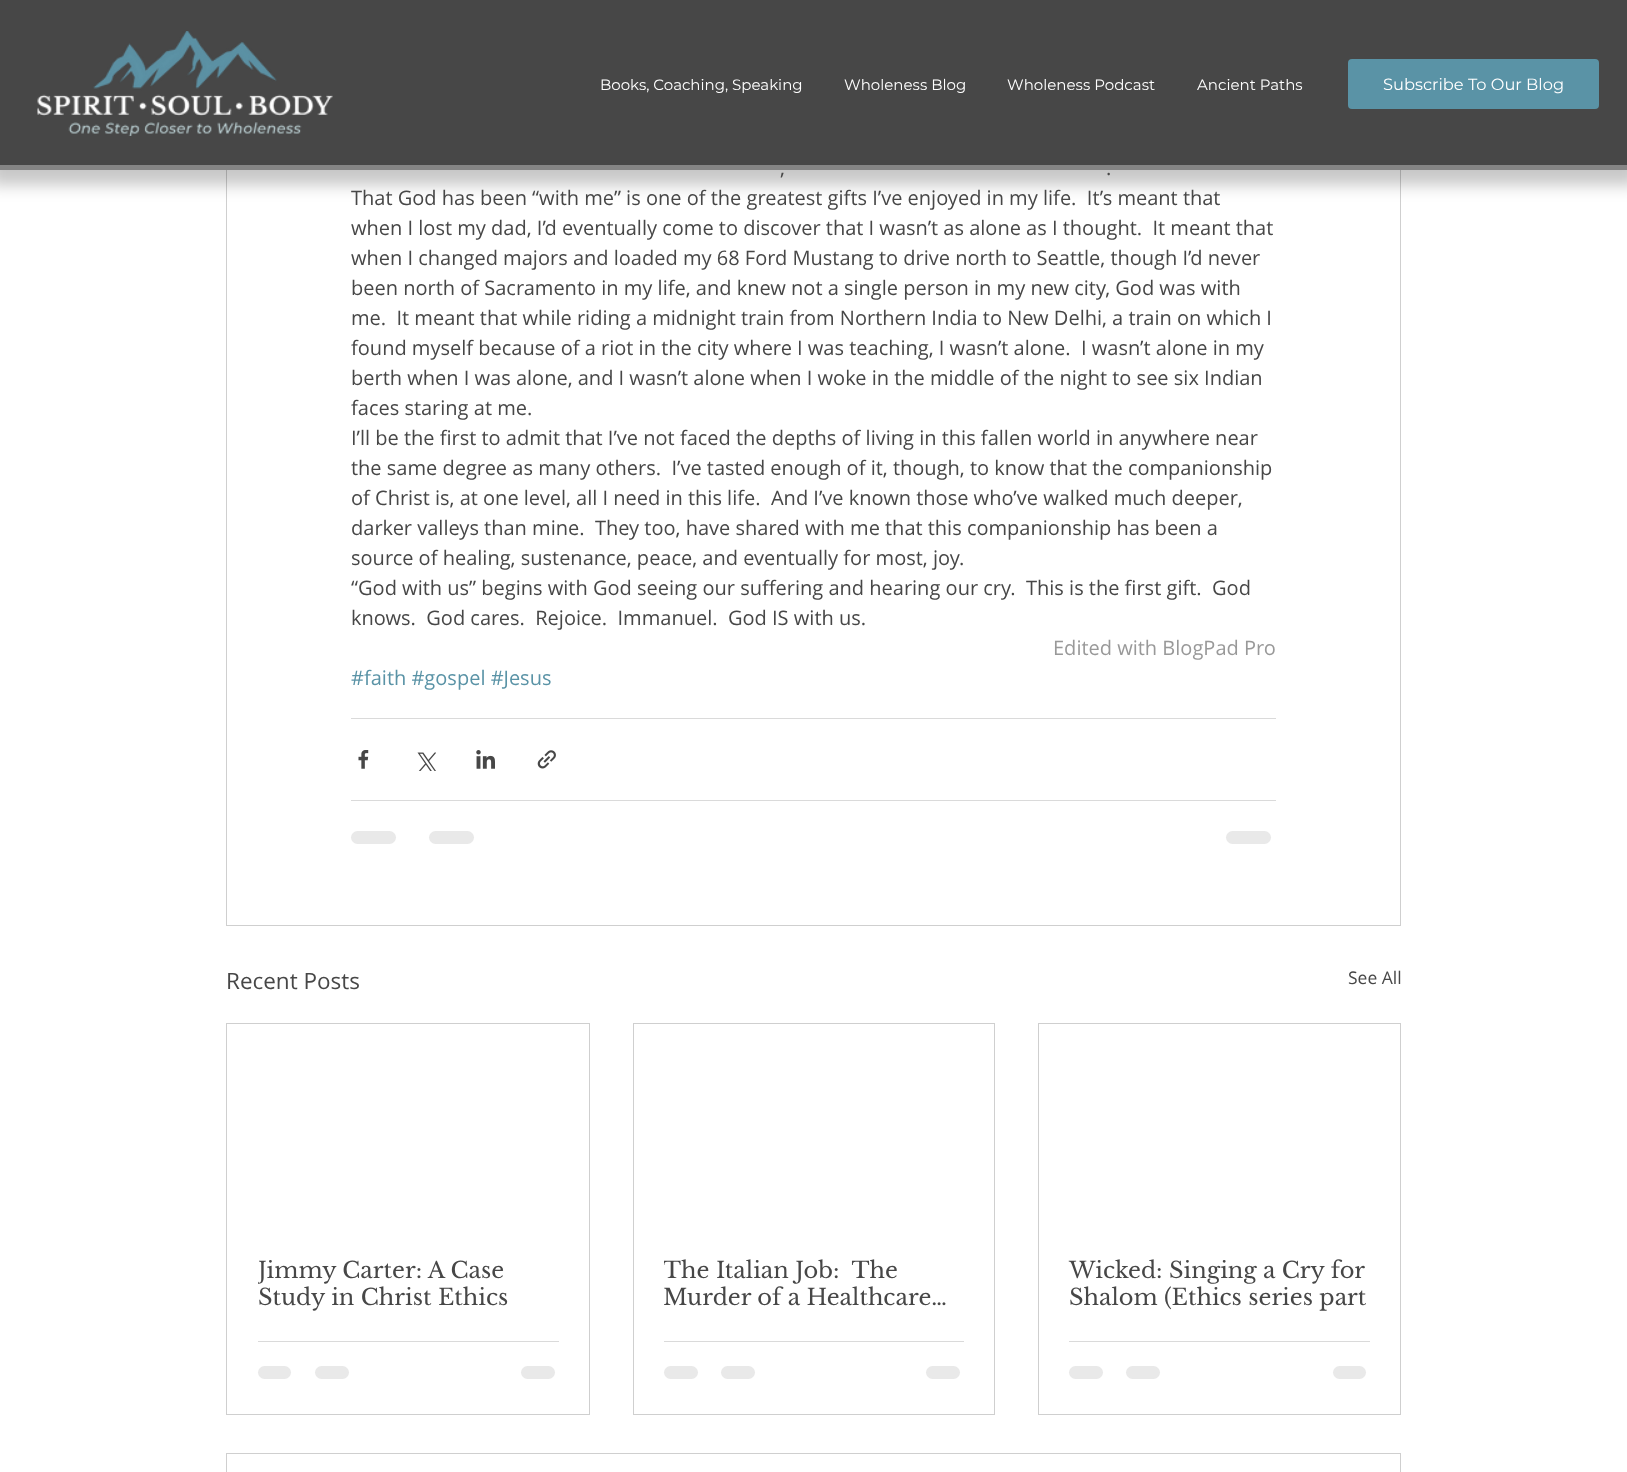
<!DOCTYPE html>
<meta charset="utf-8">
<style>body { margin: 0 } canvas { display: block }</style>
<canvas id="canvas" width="1627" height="1472"></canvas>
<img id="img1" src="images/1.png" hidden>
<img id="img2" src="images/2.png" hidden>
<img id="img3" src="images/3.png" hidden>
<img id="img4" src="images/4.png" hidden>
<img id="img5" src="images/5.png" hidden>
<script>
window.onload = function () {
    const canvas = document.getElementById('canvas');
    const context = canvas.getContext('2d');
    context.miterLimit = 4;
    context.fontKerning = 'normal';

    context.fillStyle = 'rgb(255, 255, 255)';
    context.fillRect(0, 0, 1627, 1472);
    context.strokeStyle = 'rgb(207, 207, 207)';
    context.strokeRect(226.5, -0.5, 1174, 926);
    context.fillStyle = 'rgba(0, 0, 0, 0.22)';
    context.filter = 'blur(8px)';
    context.beginPath();
    context.rect(-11, -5, 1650, 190);
    context.fill();
    context.filter = 'none';
    context.fillStyle = 'rgb(71, 71, 71)';
    context.fillRect(0, 0, 1627, 165);
    context.drawImage(document.getElementById('img1'), 37, 31, 296, 105);
    context.fillStyle = 'rgb(90, 147, 166)';
    context.beginPath();
    context.roundRect(1348, 59, 251, 50, 4);
    context.fill();
    context.fillStyle = 'rgb(133, 133, 133)';
    context.fillRect(0, 165, 1627, 5);
    context.fillStyle = 'rgb(218, 218, 218)';
    context.fillRect(351, 718, 925, 1);
    context.drawImage(document.getElementById('img2'), 358, 750, 11, 19);
    context.drawImage(document.getElementById('img3'), 417, 752, 19, 19);
    context.drawImage(document.getElementById('img4'), 476, 750, 19, 19);
    context.drawImage(document.getElementById('img5'), 537, 750, 19, 19);
    context.fillRect(351, 800, 925, 1);
    context.fillStyle = 'rgb(233, 233, 233)';
    context.beginPath();
    context.roundRect(351, 831, 45, 13, 6.5);
    context.fill();
    context.beginPath();
    context.roundRect(429, 831, 45, 13, 6.5);
    context.fill();
    context.beginPath();
    context.roundRect(1226, 831, 45, 13, 6.5);
    context.fill();
    context.strokeRect(226.5, 1023.5, 363, 391);
    context.fillStyle = 'rgb(218, 218, 218)';
    context.fillRect(258, 1341, 301, 1);
    context.fillStyle = 'rgb(233, 233, 233)';
    context.beginPath();
    context.roundRect(258, 1366, 33, 13, 6.5);
    context.fill();
    context.beginPath();
    context.roundRect(315, 1366, 34, 13, 6.5);
    context.fill();
    context.beginPath();
    context.roundRect(521, 1366, 34, 13, 6.5);
    context.fill();
    context.strokeRect(633.5, 1023.5, 361, 391);
    context.fillStyle = 'rgb(218, 218, 218)';
    context.fillRect(664, 1341, 300, 1);
    context.fillStyle = 'rgb(233, 233, 233)';
    context.beginPath();
    context.roundRect(664, 1366, 34, 13, 6.5);
    context.fill();
    context.beginPath();
    context.roundRect(721, 1366, 34, 13, 6.5);
    context.fill();
    context.beginPath();
    context.roundRect(926, 1366, 34, 13, 6.5);
    context.fill();
    context.strokeRect(1038.5, 1023.5, 362, 391);
    context.fillStyle = 'rgb(218, 218, 218)';
    context.fillRect(1069, 1341, 301, 1);
    context.fillStyle = 'rgb(233, 233, 233)';
    context.beginPath();
    context.roundRect(1069, 1366, 34, 13, 6.5);
    context.fill();
    context.beginPath();
    context.roundRect(1126, 1366, 34, 13, 6.5);
    context.fill();
    context.beginPath();
    context.roundRect(1333, 1366, 33, 13, 6.5);
    context.fill();
    context.strokeRect(226.5, 1453.5, 1174, 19);
    context.font = '15px Montserrat';
    context.fillStyle = 'rgb(255, 255, 255)';
    context.fillText('Books, Coaching, Speaking', 600, 90);
    context.fillText('Wholeness Blog', 844, 90);
    context.fillText('Wholeness Podcast', 1007, 90);
    context.fillText('Ancient Paths', 1197, 90);
    context.font = '16.25px Montserrat';
    context.fillText('Subscribe To Our Blog', 1383, 90);
    context.font = '20px Open Sans';
    context.fillStyle = 'rgb(71, 71, 71)';
    context.fillText(',', 780, 175);
    context.fillText('.', 1106, 175);
    context.fillText('That God has been “with me” is one of the greatest gifts I’ve enjoyed in my life.  It’s meant that', 351, 205);
    context.fillText('when I lost my dad, I’d eventually come to discover that I wasn’t as alone as I thought.  It meant that', 351, 235);
    context.fillText('when I changed majors and loaded my 68 Ford Mustang to drive north to Seattle, though I’d never', 351, 265);
    context.fillText('been north of Sacramento in my life, and knew not a single person in my new city, God was with', 351, 295);
    context.fillText('me.  It meant that while riding a midnight train from Northern India to New Delhi, a train on which I', 351, 325);
    context.fillText('found myself because of a riot in the city where I was teaching, I wasn’t alone.  I wasn’t alone in my', 351, 355);
    context.fillText('berth when I was alone, and I wasn’t alone when I woke in the middle of the night to see six Indian', 351, 385);
    context.fillText('faces staring at me.', 351, 415);
    context.fillText('I’ll be the first to admit that I’ve not faced the depths of living in this fallen world in anywhere near', 351, 445);
    context.fillText('the same degree as many others.  I’ve tasted enough of it, though, to know that the companionship', 351, 475);
    context.fillText('of Christ is, at one level, all I need in this life.  And I’ve known those who’ve walked much deeper,', 351, 505);
    context.fillText('darker valleys than mine.  They too, have shared with me that this companionship has been a', 351, 535);
    context.fillText('source of healing, sustenance, peace, and eventually for most, joy.', 351, 565);
    context.fillText('“God with us” begins with God seeing our suffering and hearing our cry.  This is the first gift.  God', 351, 595);
    context.fillText('knows.  God cares.  Rejoice.  Immanuel.  God IS with us.', 351, 625);
    context.fillStyle = 'rgb(153, 153, 153)';
    context.fillText('Edited with BlogPad Pro', 1053, 655);
    context.fillStyle = 'rgb(90, 147, 166)';
    context.fillText('#faith #gospel #Jesus', 351, 685);
    context.font = '22.5px Open Sans';
    context.fillStyle = 'rgb(71, 71, 71)';
    context.fillText('Recent Posts', 226, 989);
    context.font = '17.5px Open Sans';
    context.fillText('See All', 1348, 984);
    context.save();
    context.beginPath();
    context.rect(258, 1256, 301, 55);
    context.clip();
    context.font = '22.5px Libre Baskerville';
    context.fillText('Jimmy Carter: A Case', 258, 1278);
    context.restore();
    context.font = '22.5px Libre Baskerville';
    context.fillText('Study in Christ Ethics', 258, 1305);
    context.save();
    context.beginPath();
    context.rect(664, 1256, 300, 55);
    context.clip();
    context.fillText('The Italian Job:  The', 663, 1278);
    context.restore();
    context.fillText('Murder of a Healthcare…', 663, 1305);
    context.fillText('Wicked: Singing a Cry for', 1069, 1278);
    context.fillText('Shalom (Ethics series part', 1069, 1305);
};
</script>
